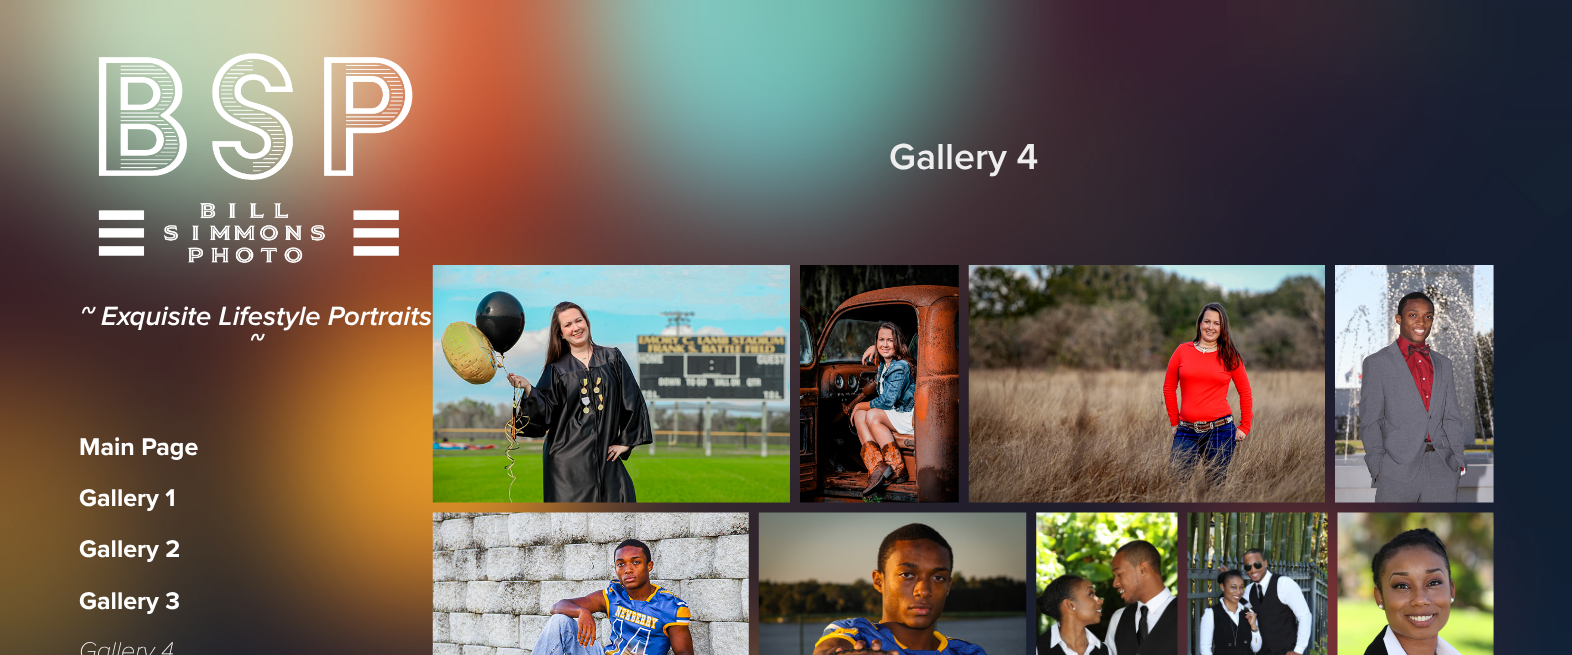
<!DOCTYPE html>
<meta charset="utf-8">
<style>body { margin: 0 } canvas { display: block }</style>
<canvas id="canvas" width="1572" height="655"></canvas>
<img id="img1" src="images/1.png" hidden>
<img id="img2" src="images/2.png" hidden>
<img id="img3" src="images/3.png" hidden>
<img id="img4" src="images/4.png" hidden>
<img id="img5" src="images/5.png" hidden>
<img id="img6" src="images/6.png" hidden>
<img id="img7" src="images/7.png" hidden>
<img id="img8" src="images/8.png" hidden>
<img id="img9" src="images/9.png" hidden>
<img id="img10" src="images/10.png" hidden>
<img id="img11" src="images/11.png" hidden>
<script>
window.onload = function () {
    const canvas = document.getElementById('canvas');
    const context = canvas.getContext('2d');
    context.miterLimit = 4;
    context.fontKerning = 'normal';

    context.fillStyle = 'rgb(255, 255, 255)';
    context.fillRect(0, 0, 1572, 655);
    context.drawImage(document.getElementById('img1'), 0, 0, 1572, 655);
    context.drawImage(document.getElementById('img2'), 432, 265, 358, 238);
    context.drawImage(document.getElementById('img3'), 800, 265, 159, 238);
    context.drawImage(document.getElementById('img4'), 968, 265, 357, 238);
    context.drawImage(document.getElementById('img5'), 1335, 265, 159, 238);
    context.drawImage(document.getElementById('img6'), 432, 512, 317, 143);
    context.drawImage(document.getElementById('img7'), 758, 512, 269, 143);
    context.drawImage(document.getElementById('img8'), 1036, 512, 142, 143);
    context.drawImage(document.getElementById('img9'), 1187, 512, 141, 143);
    context.drawImage(document.getElementById('img10'), 1337, 512, 157, 143);
    context.drawImage(document.getElementById('img11'), 98, 53, 315, 210);
    context.font = '600 37.5px Proxima Nova';
    context.fillStyle = 'rgb(238, 238, 238)';
    context.fillText('Gallery 4', 889, 169);
    context.font = 'italic 600 27.5px Proxima Nova';
    context.fillStyle = 'rgb(255, 255, 255)';
    context.fillText('~ Exquisite Lifestyle Portraits', 80, 325);
    context.fillText('~', 249, 352);
    context.font = 'bold 25px Proxima Nova';
    context.fillText('Main Page', 79, 455);
    context.fillText('Gallery 1', 79, 506);
    context.fillText('Gallery 2', 79, 557);
    context.fillText('Gallery 3', 79, 609);
    context.font = 'italic 100 25px Proxima Nova';
    context.fillText('Gallery 4', 79, 659);
};
</script>
